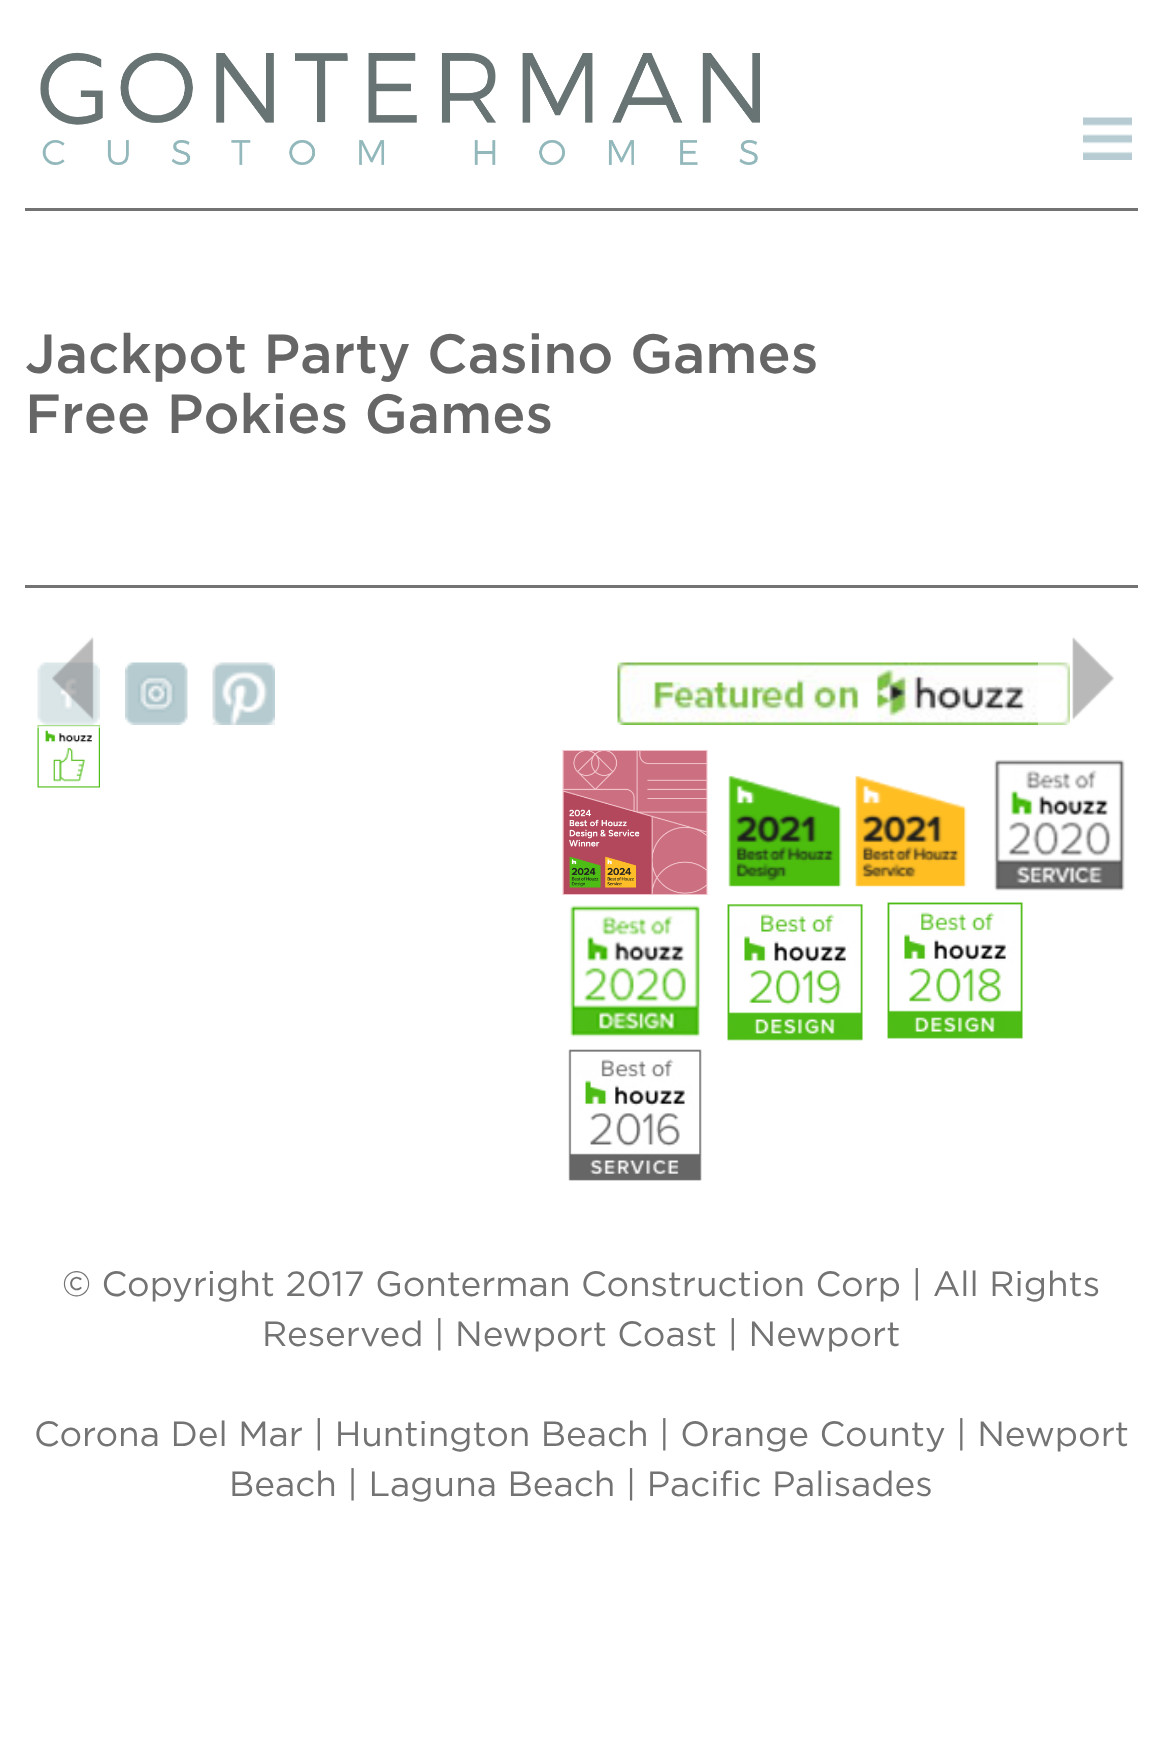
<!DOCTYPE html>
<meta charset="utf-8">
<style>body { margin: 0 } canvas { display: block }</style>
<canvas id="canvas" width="1161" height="1752"></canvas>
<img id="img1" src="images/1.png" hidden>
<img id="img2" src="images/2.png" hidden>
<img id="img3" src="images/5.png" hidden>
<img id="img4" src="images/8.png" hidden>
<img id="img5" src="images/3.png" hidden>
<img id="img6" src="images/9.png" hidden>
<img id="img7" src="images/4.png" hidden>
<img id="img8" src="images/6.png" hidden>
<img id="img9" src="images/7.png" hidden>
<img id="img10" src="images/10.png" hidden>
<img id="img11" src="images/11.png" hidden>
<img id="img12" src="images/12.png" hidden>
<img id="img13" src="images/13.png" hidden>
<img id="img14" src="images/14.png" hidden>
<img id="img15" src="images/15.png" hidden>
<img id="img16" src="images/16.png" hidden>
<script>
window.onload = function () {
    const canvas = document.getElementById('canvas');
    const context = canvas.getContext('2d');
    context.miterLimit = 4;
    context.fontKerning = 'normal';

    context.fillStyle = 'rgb(255, 255, 255)';
    context.fillRect(0, 0, 1161, 1752);
    context.drawImage(document.getElementById('img1'), 40, 52, 720, 113);
    context.drawImage(document.getElementById('img2'), 1083, 117, 49, 43);
    context.fillStyle = 'rgb(115, 115, 116)';
    context.fillRect(25, 208, 1113, 3);
    context.drawImage(document.getElementById('img3'), 37, 662, 63, 63);
    context.drawImage(document.getElementById('img4'), 37, 725, 63, 63);
    context.fillStyle = 'rgba(255, 255, 255, 0.5)';
    context.fillRect(37, 662, 63, 66);
    context.drawImage(document.getElementById('img5'), 52, 636, 42, 84);
    context.drawImage(document.getElementById('img6'), 617, 662, 453, 63);
    context.fillRect(1038, 662, 32, 63);
    context.drawImage(document.getElementById('img7'), 1072, 636, 42, 84);
    context.fillStyle = 'rgb(115, 115, 116)';
    context.fillRect(25, 585, 1113, 3);
    context.drawImage(document.getElementById('img8'), 125, 662, 63, 63);
    context.drawImage(document.getElementById('img9'), 212, 662, 63, 63);
    context.drawImage(document.getElementById('img10'), 562, 750, 146, 145);
    context.drawImage(document.getElementById('img11'), 728, 775, 239, 112);
    context.drawImage(document.getElementById('img12'), 994, 759, 131, 132);
    context.drawImage(document.getElementById('img13'), 569, 905, 132, 132);
    context.drawImage(document.getElementById('img14'), 727, 904, 136, 137);
    context.drawImage(document.getElementById('img15'), 887, 902, 136, 137);
    context.drawImage(document.getElementById('img16'), 568, 1049, 134, 132);
    context.font = '500 55px Gotham';
    context.fillStyle = 'rgb(102, 102, 102)';
    context.fillText('Jackpot Party Casino Games', 25, 373);
    context.fillText('Free Pokies Games', 25, 433);
    context.font = '35px Gotham';
    context.fillStyle = 'rgb(115, 115, 116)';
    context.fillText('© Copyright 2017 Gonterman Construction Corp | All Rights', 62, 1296);
    context.fillText('Reserved | Newport Coast | Newport', 262, 1346);
    context.fillText('Corona Del Mar | Huntington Beach | Orange County | Newport', 34, 1446);
    context.fillText('Beach | Laguna Beach | Pacific Palisades', 229, 1496);
};
</script>
